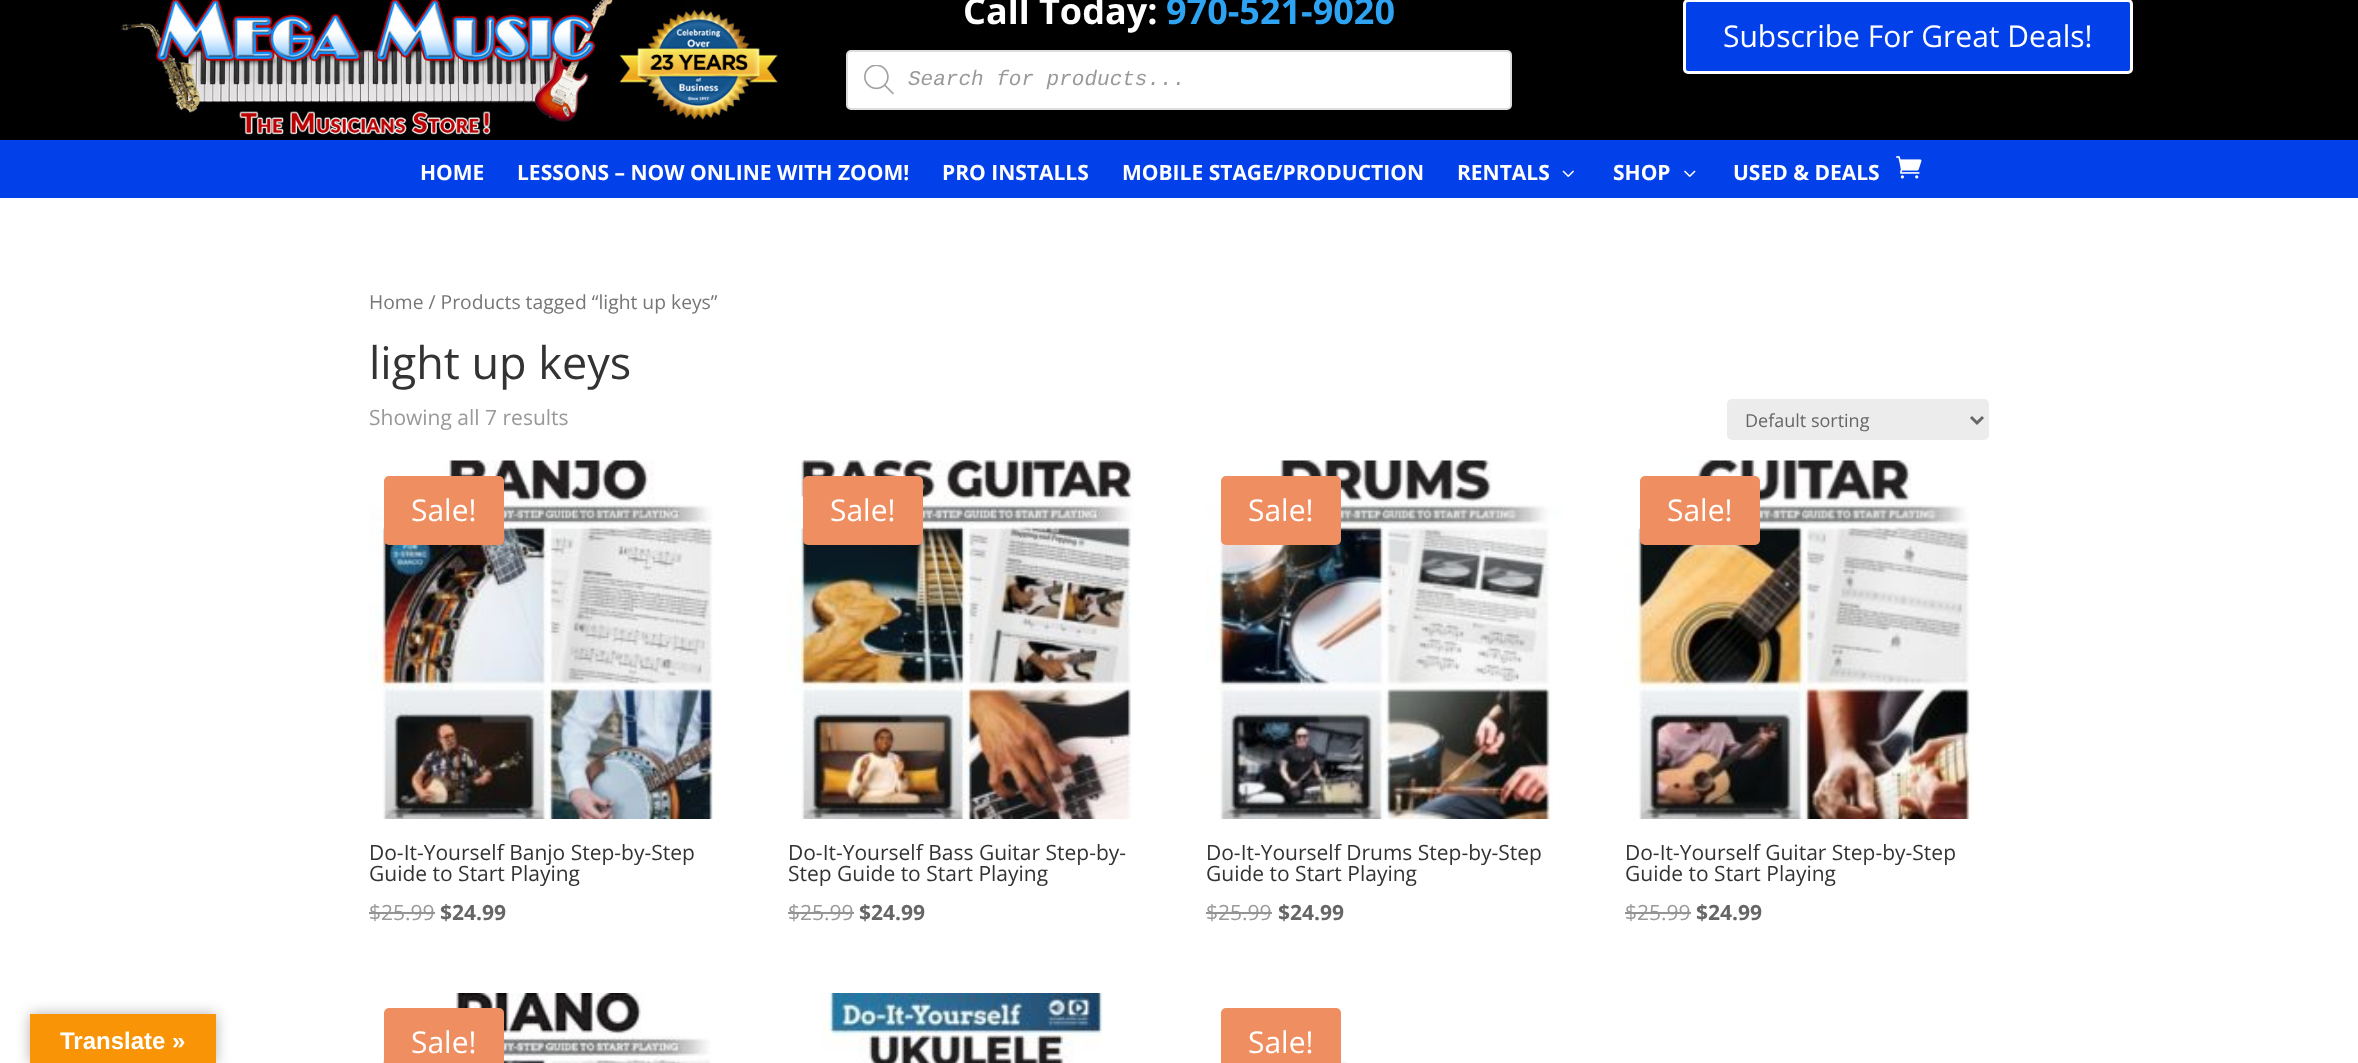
<!DOCTYPE html>
<meta charset="utf-8">
<style>body { margin: 0 } canvas { display: block }</style>
<canvas id="canvas" width="2358" height="1063"></canvas>
<img id="img1" src="images/1.png" hidden>
<img id="img2" src="images/2.png" hidden>
<img id="img3" src="images/3.png" hidden>
<img id="img4" src="images/4.png" hidden>
<img id="img5" src="images/5.png" hidden>
<img id="img6" src="images/6.png" hidden>
<img id="img7" src="images/7.png" hidden>
<img id="img8" src="images/8.png" hidden>
<img id="img9" src="images/9.png" hidden>
<img id="img10" src="images/10.png" hidden>
<img id="img11" src="images/11.png" hidden>
<img id="img12" src="images/12.png" hidden>
<script>
window.onload = function () {
    const canvas = document.getElementById('canvas');
    const context = canvas.getContext('2d');
    context.miterLimit = 4;
    context.fontKerning = 'normal';

    context.fillStyle = 'rgb(0, 0, 0)';
    context.fillRect(0, 0, 2358, 1063);
    context.fillStyle = 'rgb(255, 255, 255)';
    context.fillRect(0, 198, 2358, 865);
    context.fillStyle = 'rgba(0, 0, 0, 0.3)';
    context.filter = 'blur(7px)';
    context.beginPath();
    context.rect(30, 1014, 186, 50);
    context.fill();
    context.filter = 'none';
    context.fillStyle = 'rgb(248, 148, 6)';
    context.fillRect(30, 1014, 186, 49);
    context.drawImage(document.getElementById('img1'), 119, 0, 662, 137);
    context.fillStyle = 'rgb(255, 255, 255)';
    context.beginPath();
    context.roundRect(847, 51, 664, 58, 4);
    context.fill();
    context.strokeStyle = 'rgb(221, 221, 221)';
    context.lineWidth = 2;
    context.stroke();
    context.drawImage(document.getElementById('img2'), 864, 65, 30, 30);
    context.fillStyle = 'rgb(2, 64, 233)';
    context.beginPath();
    context.roundRect(1684.5, 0.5, 447, 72, 3.5);
    context.fill();
    context.strokeStyle = 'rgb(255, 255, 255)';
    context.lineWidth = 3;
    context.stroke();
    context.fillRect(0, 140, 2358, 58);
    context.drawImage(document.getElementById('img3'), 1562, 170, 12, 7);
    context.drawImage(document.getElementById('img4'), 1684, 170, 12, 7);
    context.drawImage(document.getElementById('img5'), 1896, 156, 26, 23);
    context.fillStyle = 'rgb(236, 236, 236)';
    context.beginPath();
    context.roundRect(1727, 399, 262, 41, 5);
    context.fill();
    context.beginPath();
    context.moveTo(1971, 417);
    context.lineTo(1977, 423);
    context.lineTo(1983, 417);
    context.strokeStyle = 'rgb(102, 102, 102)';
    context.stroke();
    context.drawImage(document.getElementById('img6'), 369, 460, 344, 359);
    context.fillStyle = 'rgb(239, 143, 97)';
    context.beginPath();
    context.roundRect(384, 476, 120, 69, 5);
    context.fill();
    context.drawImage(document.getElementById('img7'), 787, 460, 347, 359);
    context.beginPath();
    context.roundRect(803, 476, 120, 69, 5);
    context.fill();
    context.drawImage(document.getElementById('img8'), 1206, 460, 357, 359);
    context.beginPath();
    context.roundRect(1221, 476, 120, 69, 5);
    context.fill();
    context.drawImage(document.getElementById('img9'), 1624, 460, 349, 359);
    context.beginPath();
    context.roundRect(1640, 476, 120, 69, 5);
    context.fill();
    context.drawImage(document.getElementById('img10'), 383, 993, 328, 70);
    context.beginPath();
    context.roundRect(384, 1008, 120, 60, 5);
    context.fill();
    context.drawImage(document.getElementById('img11'), 821, 993, 282, 70);
    context.beginPath();
    context.roundRect(1221, 1008, 120, 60, 5);
    context.fill();
    context.drawImage(document.getElementById('img12'), 1341, 1061, 6, 2);
    context.font = 'bold 24px Liberation Sans';
    context.fillStyle = 'rgb(255, 255, 255)';
    context.fillText('Translate »', 60, 1049);
    context.font = 'bold 36px Open Sans';
    context.fillText('Call Today:', 963, 24);
    context.fillStyle = 'rgb(46, 163, 242)';
    context.fillText('970-521-9020', 1166, 24);
    context.font = 'italic 21px Liberation Mono';
    context.fillStyle = 'rgb(153, 153, 153)';
    context.fillText('Search for products...', 908, 85);
    context.font = '30px Open Sans';
    context.fillStyle = 'rgb(255, 255, 255)';
    context.fillText('Subscribe For Great Deals!', 1723, 47);
    context.font = 'bold 21px Open Sans';
    context.fillText('HOME', 420, 180);
    context.fillText('LESSONS – NOW ONLINE WITH ZOOM!', 517, 180);
    context.fillText('PRO INSTALLS', 942, 180);
    context.fillText('MOBILE STAGE/PRODUCTION', 1122, 180);
    context.fillText('RENTALS', 1457, 180);
    context.fillText('SHOP', 1613, 180);
    context.fillText('USED & DEALS', 1733, 180);
    context.font = '19.3px Open Sans';
    context.fillStyle = 'rgb(118, 118, 118)';
    context.fillText('Home / Products tagged “light up keys”', 369, 309);
    context.font = '45px Open Sans';
    context.fillStyle = 'rgb(51, 51, 51)';
    context.fillText('light up keys', 369, 379);
    context.font = '21px Open Sans';
    context.fillStyle = 'rgb(153, 153, 153)';
    context.fillText('Showing all 7 results', 369, 425);
    context.font = '18px Open Sans';
    context.fillStyle = 'rgb(102, 102, 102)';
    context.fillText('Default sorting', 1745, 427);
    context.font = '30px Open Sans';
    context.fillStyle = 'rgb(255, 255, 255)';
    context.fillText('Sale!', 411, 521);
    context.font = '21px Open Sans';
    context.fillStyle = 'rgb(51, 51, 51)';
    context.fillText('Do-It-Yourself Banjo Step-by-Step', 369, 860);
    context.fillText('Guide to Start Playing', 369, 881);
    context.fillStyle = 'rgb(153, 153, 153)';
    context.fillText('$25.99', 369, 920);
    context.fillStyle = 'rgb(148, 148, 148)';
    context.fillRect(369, 912, 66, 2);
    context.font = 'bold 21px Open Sans';
    context.fillStyle = 'rgb(102, 102, 102)';
    context.fillText('$24.99', 440, 920);
    context.font = '30px Open Sans';
    context.fillStyle = 'rgb(255, 255, 255)';
    context.fillText('Sale!', 830, 521);
    context.font = '21px Open Sans';
    context.fillStyle = 'rgb(51, 51, 51)';
    context.fillText('Do-It-Yourself Bass Guitar Step-by-', 788, 860);
    context.fillText('Step Guide to Start Playing', 788, 881);
    context.fillStyle = 'rgb(153, 153, 153)';
    context.fillText('$25.99', 788, 920);
    context.fillStyle = 'rgb(148, 148, 148)';
    context.fillRect(788, 912, 66, 2);
    context.font = 'bold 21px Open Sans';
    context.fillStyle = 'rgb(102, 102, 102)';
    context.fillText('$24.99', 859, 920);
    context.font = '30px Open Sans';
    context.fillStyle = 'rgb(255, 255, 255)';
    context.fillText('Sale!', 1248, 521);
    context.font = '21px Open Sans';
    context.fillStyle = 'rgb(51, 51, 51)';
    context.fillText('Do-It-Yourself Drums Step-by-Step', 1206, 860);
    context.fillText('Guide to Start Playing', 1206, 881);
    context.fillStyle = 'rgb(153, 153, 153)';
    context.fillText('$25.99', 1206, 920);
    context.fillStyle = 'rgb(148, 148, 148)';
    context.fillRect(1206, 912, 66, 2);
    context.font = 'bold 21px Open Sans';
    context.fillStyle = 'rgb(102, 102, 102)';
    context.fillText('$24.99', 1278, 920);
    context.font = '30px Open Sans';
    context.fillStyle = 'rgb(255, 255, 255)';
    context.fillText('Sale!', 1667, 521);
    context.font = '21px Open Sans';
    context.fillStyle = 'rgb(51, 51, 51)';
    context.fillText('Do-It-Yourself Guitar Step-by-Step', 1625, 860);
    context.fillText('Guide to Start Playing', 1625, 881);
    context.fillStyle = 'rgb(153, 153, 153)';
    context.fillText('$25.99', 1625, 920);
    context.fillStyle = 'rgb(148, 148, 148)';
    context.fillRect(1625, 912, 66, 2);
    context.font = 'bold 21px Open Sans';
    context.fillStyle = 'rgb(102, 102, 102)';
    context.fillText('$24.99', 1696, 920);
    context.font = '30px Open Sans';
    context.fillStyle = 'rgb(255, 255, 255)';
    context.fillText('Sale!', 411, 1053);
    context.fillText('Sale!', 1248, 1053);
};
</script>
